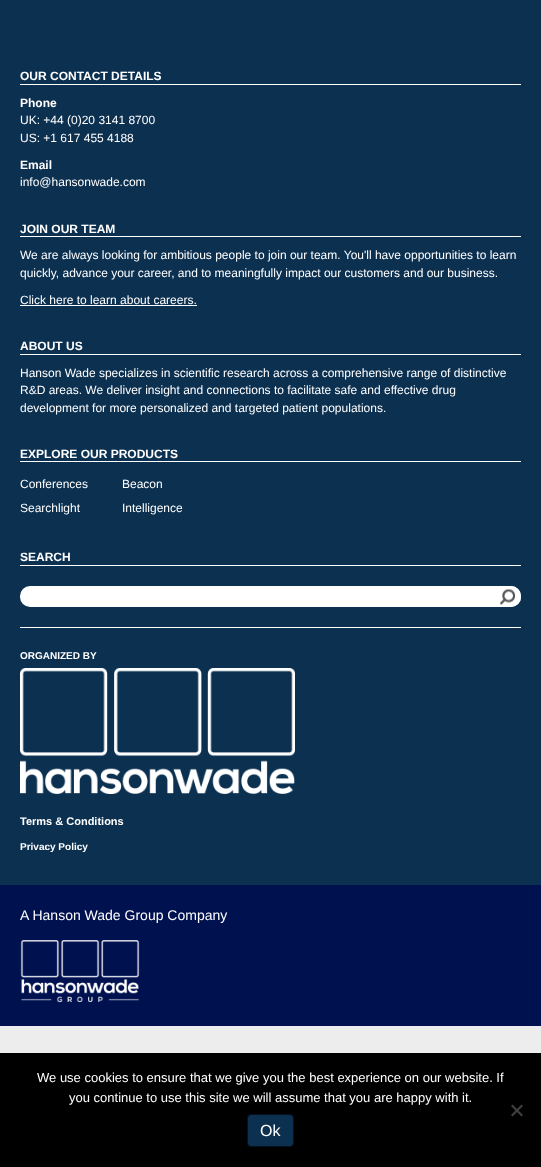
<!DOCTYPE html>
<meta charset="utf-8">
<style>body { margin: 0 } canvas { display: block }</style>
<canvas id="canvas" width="541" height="1167"></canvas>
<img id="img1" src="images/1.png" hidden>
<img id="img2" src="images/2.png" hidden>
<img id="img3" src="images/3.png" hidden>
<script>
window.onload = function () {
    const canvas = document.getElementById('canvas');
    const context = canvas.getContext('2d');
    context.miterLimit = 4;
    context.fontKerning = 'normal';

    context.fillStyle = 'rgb(237, 237, 237)';
    context.fillRect(0, 0, 541, 1167);
    context.fillStyle = 'rgb(12, 48, 80)';
    context.fillRect(0, 0, 541, 885);
    context.fillStyle = 'rgb(255, 255, 255)';
    context.fillRect(20, 84, 501, 1);
    context.fillRect(20, 236, 501, 1);
    context.fillRect(20, 305, 177, 1);
    context.fillRect(20, 354, 501, 1);
    context.fillRect(20, 461, 501, 1);
    context.fillRect(20, 565, 501, 1);
    context.beginPath();
    context.roundRect(20, 586, 501, 21, 10);
    context.fill();
    context.drawImage(document.getElementById('img1'), 500, 586, 21, 21);
    context.fillRect(20, 627, 501, 1);
    context.drawImage(document.getElementById('img2'), 20, 668, 275, 126);
    context.fillStyle = 'rgb(0, 17, 79)';
    context.fillRect(0, 885, 541, 141);
    context.drawImage(document.getElementById('img3'), 20, 940, 120, 63);
    context.fillStyle = 'rgb(0, 0, 0)';
    context.fillRect(0, 1053, 541, 114);
    context.fillStyle = 'rgb(64, 64, 64)';
    context.beginPath();
    context.moveTo(521.5, 1104.5);
    context.lineTo(523, 1106);
    context.lineTo(512.5, 1116.5);
    context.lineTo(511, 1115);
    context.closePath();
    context.fill();
    context.beginPath();
    context.moveTo(511, 1106);
    context.lineTo(512.5, 1104.5);
    context.lineTo(523, 1115);
    context.lineTo(521.5, 1116.5);
    context.closePath();
    context.fill();
    context.fillStyle = 'rgb(12, 48, 80)';
    context.beginPath();
    context.roundRect(247.5, 1114.5, 46, 32, 3.5);
    context.fill();
    context.strokeStyle = 'rgb(4, 16, 27)';
    context.stroke();
    context.font = 'bold 12px Liberation Sans';
    context.fillStyle = 'rgb(255, 255, 255)';
    context.fillText('OUR CONTACT DETAILS', 20, 80);
    context.fillText('Phone', 20, 107);
    context.font = '12px Liberation Sans';
    context.fillText('UK: +44 (0)20 3141 8700', 20, 124);
    context.fillText('US: +1 617 455 4188', 20, 142);
    context.font = 'bold 12px Liberation Sans';
    context.fillText('Email', 20, 169);
    context.font = '12px Liberation Sans';
    context.fillText('info@hansonwade.com', 20, 186);
    context.font = 'bold 12px Liberation Sans';
    context.fillText('JOIN OUR TEAM', 20, 233);
    context.font = '12px Liberation Sans';
    context.fillText('We are always looking for ambitious people to join our team. You\'ll have opportunities to learn', 20, 259);
    context.fillText('quickly, advance your career, and to meaningfully impact our customers and our business.', 20, 277);
    context.fillText('Click here to learn about careers.', 20, 304);
    context.font = 'bold 12px Liberation Sans';
    context.fillText('ABOUT US', 20, 350);
    context.font = '12px Liberation Sans';
    context.fillText('Hanson Wade specializes in scientific research across a comprehensive range of distinctive', 20, 377);
    context.fillText('R&D areas. We deliver insight and connections to facilitate safe and effective drug', 20, 394);
    context.fillText('development for more personalized and targeted patient populations.', 20, 412);
    context.font = 'bold 12px Liberation Sans';
    context.fillText('EXPLORE OUR PRODUCTS', 20, 458);
    context.font = '12px Liberation Sans';
    context.fillText('Conferences', 20, 488);
    context.fillText('Beacon', 122, 488);
    context.fillText('Searchlight', 20, 512);
    context.fillText('Intelligence', 122, 512);
    context.font = 'bold 12px Liberation Sans';
    context.fillText('SEARCH', 20, 561);
    context.font = 'bold 10px Liberation Sans';
    context.fillText('ORGANIZED BY', 20, 659);
    context.font = 'bold 11px Liberation Sans';
    context.fillText('Terms & Conditions', 20, 825);
    context.font = 'bold 10px Liberation Sans';
    context.fillText('Privacy Policy', 20, 850);
    context.font = '14px Liberation Sans';
    context.fillText('A Hanson Wade Group Company', 20, 920);
    context.font = '13px Liberation Sans';
    context.fillText('We use cookies to ensure that we give you the best experience on our website. If', 37, 1082);
    context.fillText('you continue to use this site we will assume that you are happy with it.', 69, 1102);
    context.font = '16px Liberation Sans';
    context.fillText('Ok', 260, 1136);
};
</script>
